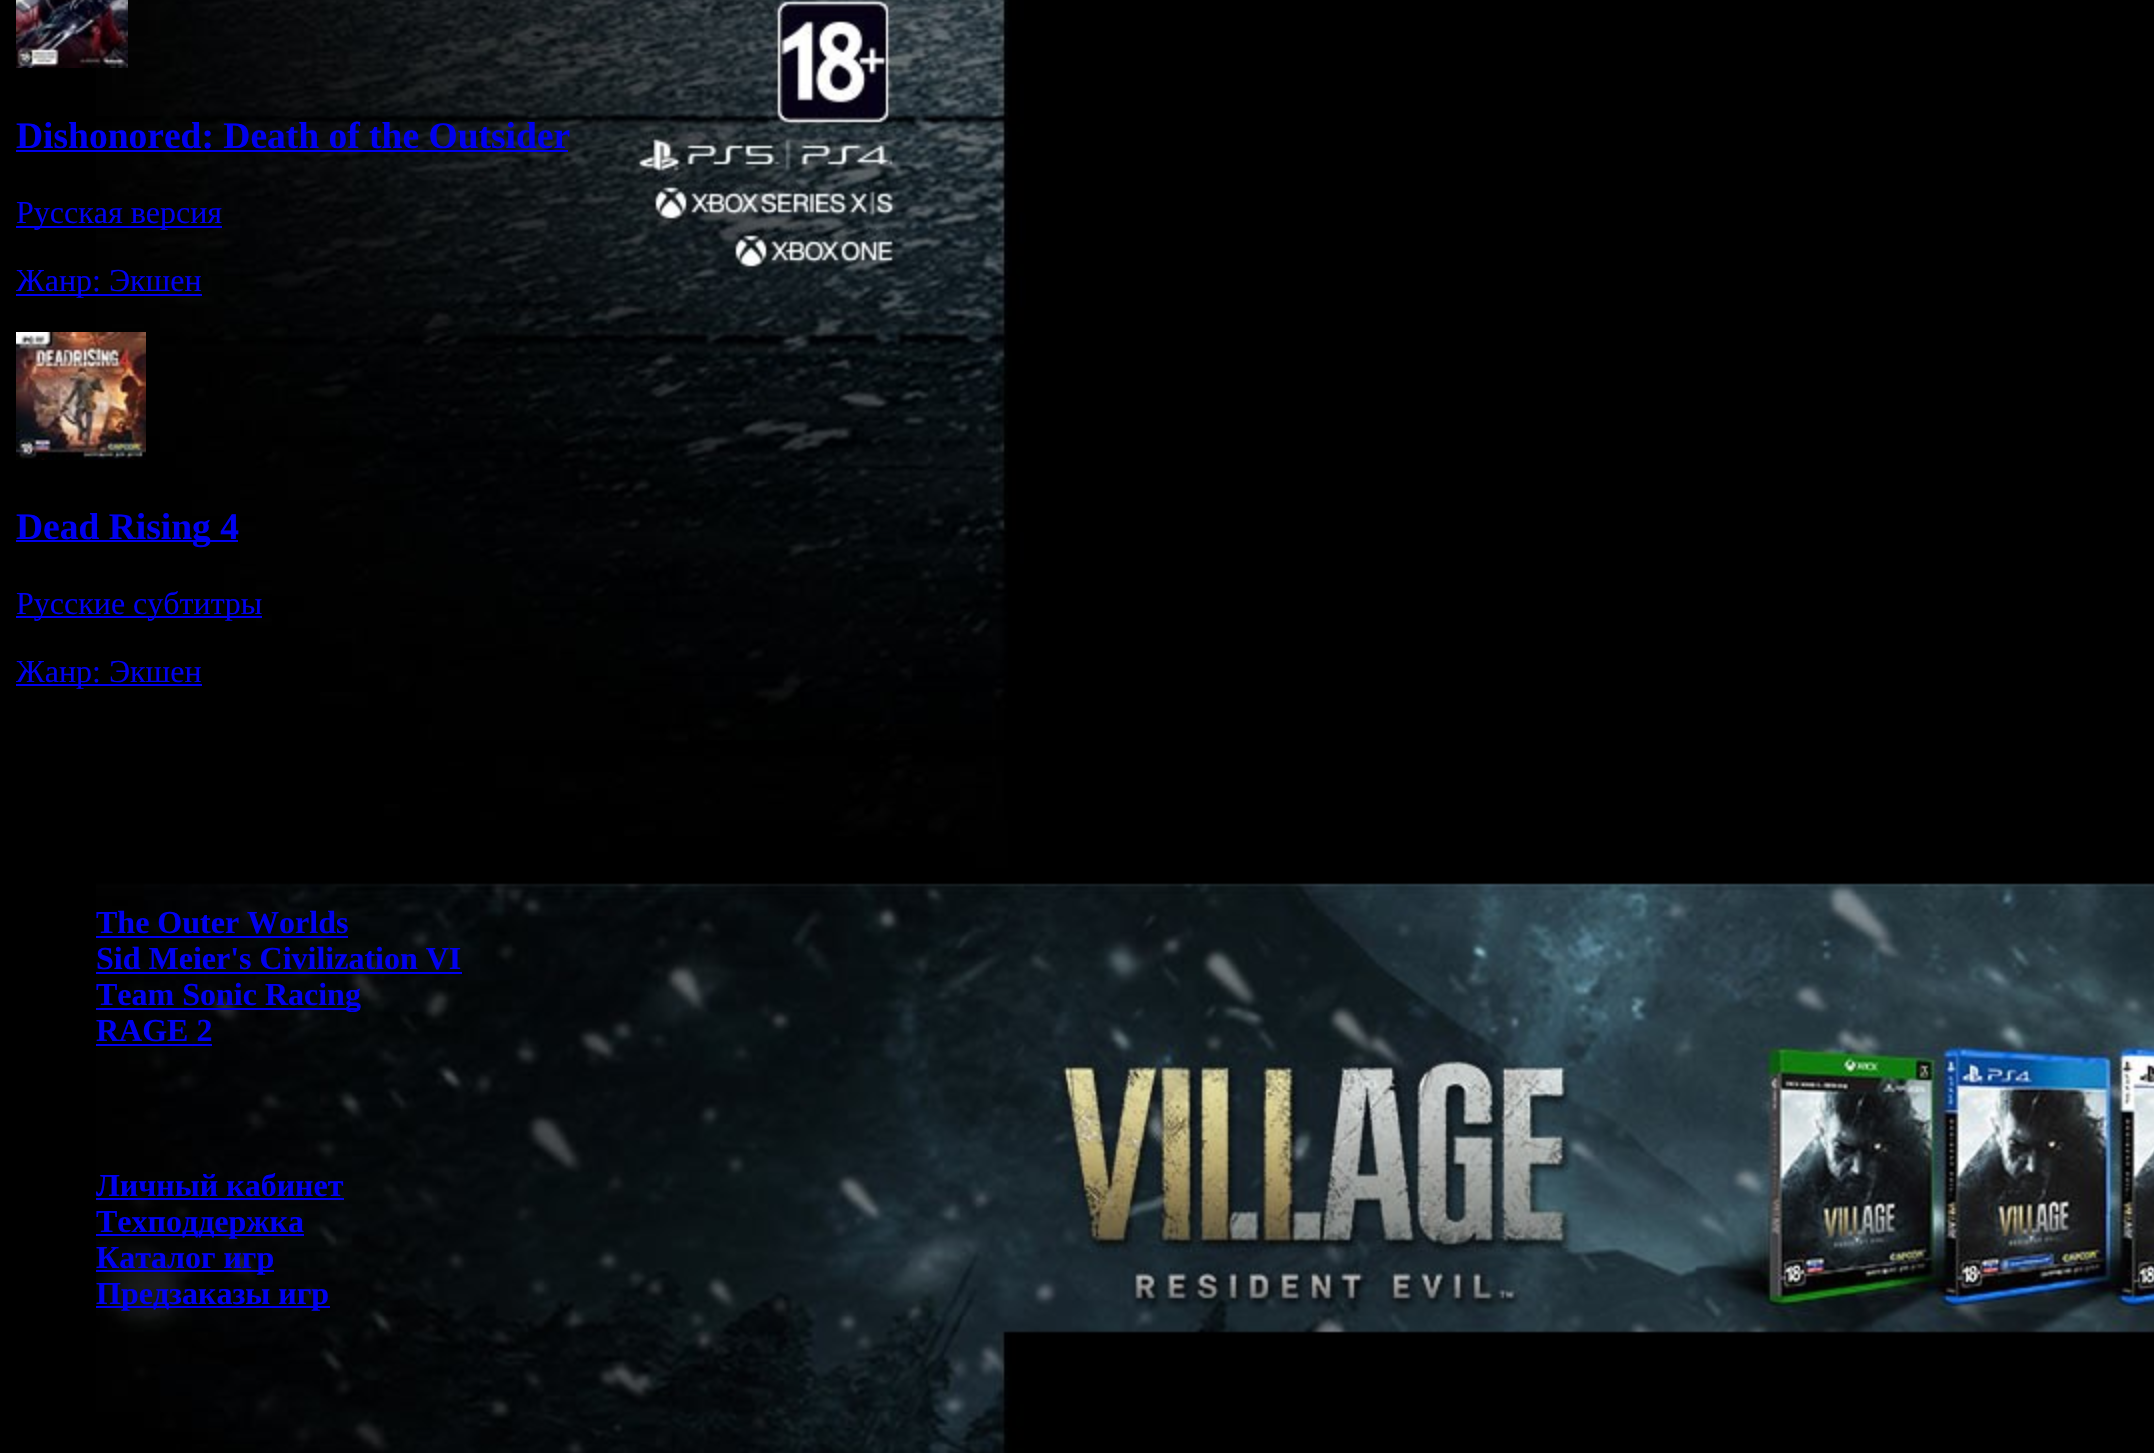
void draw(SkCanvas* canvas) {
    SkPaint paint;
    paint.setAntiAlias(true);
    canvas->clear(0xFF000000);
    canvas->drawImageRect(SkImages::DeferredFromEncodedData(SkData::MakeFromFileName("img1.png")), SkRect::MakeXYWH(96, 0, 2058, 1453), SkSamplingOptions());
    canvas->drawImageRect(SkImages::DeferredFromEncodedData(SkData::MakeFromFileName("img2.png")), SkRect::MakeXYWH(16, 0, 112, 68), SkSamplingOptions());
    SkFont font1(fontMgr->matchFamilyStyle("Liberation Serif", SkFontStyle::Bold()), 37.5f);
    font1.setSubpixel(true);
    paint.setColor(0xFF0000EE);
    canvas->drawString("Dishonored: Death of the Outsider", 16, 148, font1, paint);
    canvas->drawRect(SkRect::MakeXYWH(16, 150, 552, 2), paint);
    canvas->drawRect(SkRect::MakeXYWH(16, 226, 206, 2), paint);
    SkFont font2(fontMgr->matchFamilyStyle("Liberation Serif", SkFontStyle::Normal()), 32);
    font2.setSubpixel(true);
    canvas->drawString("Русская версия", 16, 223, font2, paint);
    canvas->drawRect(SkRect::MakeXYWH(16, 294, 186, 2), paint);
    canvas->drawString("Жанр: Экшен", 16, 291, font2, paint);
    canvas->drawImageRect(SkImages::DeferredFromEncodedData(SkData::MakeFromFileName("img3.png")), SkRect::MakeXYWH(16, 332, 130, 128), SkSamplingOptions());
    canvas->drawRect(SkRect::MakeXYWH(16, 540, 222, 2), paint);
    canvas->drawString("Dead Rising 4", 16, 539, font1, paint);
    canvas->drawRect(SkRect::MakeXYWH(16, 616, 246, 2), paint);
    canvas->drawString("Русские субтитры", 16, 614, font2, paint);
    canvas->drawRect(SkRect::MakeXYWH(16, 684, 186, 2), paint);
    canvas->drawString("Жанр: Экшен", 16, 682, font2, paint);
    SkFont font3(fontMgr->matchFamilyStyle("Liberation Serif", SkFontStyle::Bold()), 32);
    font3.setSubpixel(true);
    canvas->drawString("The Outer Worlds", 96, 933, font3, paint);
    canvas->drawRect(SkRect::MakeXYWH(96, 936, 252, 2), paint);
    canvas->drawString("Sid Meier's Civilization VI", 96, 969, font3, paint);
    canvas->drawRect(SkRect::MakeXYWH(96, 972, 366, 2), paint);
    canvas->drawRect(SkRect::MakeXYWH(96, 1008, 264, 2), paint);
    canvas->drawString("Team Sonic Racing", 96, 1005, font3, paint);
    canvas->drawString("RAGE 2", 96, 1041, font3, paint);
    canvas->drawRect(SkRect::MakeXYWH(96, 1044, 116, 2), paint);
    canvas->drawString("Личный кабинет", 96, 1196, font3, paint);
    canvas->drawRect(SkRect::MakeXYWH(96, 1198, 248, 2), paint);
    canvas->drawRect(SkRect::MakeXYWH(96, 1234, 208, 2), paint);
    canvas->drawString("Техподдержка", 96, 1232, font3, paint);
    canvas->drawRect(SkRect::MakeXYWH(96, 1270, 178, 2), paint);
    canvas->drawString("Каталог игр", 96, 1268, font3, paint);
    canvas->drawRect(SkRect::MakeXYWH(96, 1306, 234, 2), paint);
    canvas->drawString("Предзаказы игр", 96, 1304, font3, paint);
}
